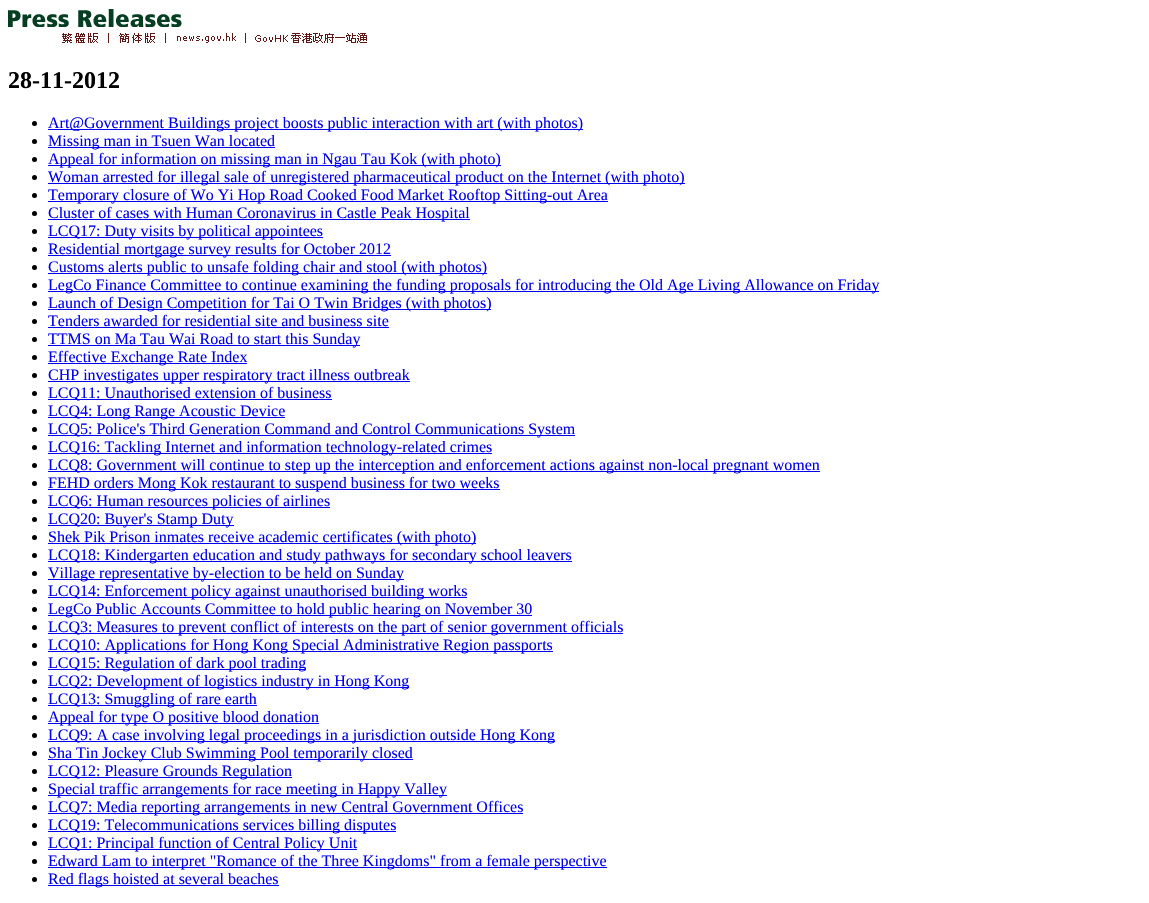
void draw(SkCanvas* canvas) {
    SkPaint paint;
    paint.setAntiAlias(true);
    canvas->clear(0xFFFFFFFF);
    canvas->drawImageRect(SkImages::DeferredFromEncodedData(SkData::MakeFromFileName("img1.png")), SkRect::MakeXYWH(8, 9, 174, 18), SkSamplingOptions());
    canvas->drawImageRect(SkImages::DeferredFromEncodedData(SkData::MakeFromFileName("img2.png")), SkRect::MakeXYWH(62, 33, 47, 10), SkSamplingOptions());
    canvas->drawImageRect(SkImages::DeferredFromEncodedData(SkData::MakeFromFileName("img3.png")), SkRect::MakeXYWH(119, 33, 47, 10), SkSamplingOptions());
    canvas->drawImageRect(SkImages::DeferredFromEncodedData(SkData::MakeFromFileName("img4.png")), SkRect::MakeXYWH(177, 33, 69, 10), SkSamplingOptions());
    canvas->drawImageRect(SkImages::DeferredFromEncodedData(SkData::MakeFromFileName("img5.png")), SkRect::MakeXYWH(255, 33, 112, 10), SkSamplingOptions());
    SkFont font1(fontMgr->matchFamilyStyle("Liberation Serif", SkFontStyle::Bold()), 24);
    font1.setSubpixel(true);
    paint.setColor(0xFF000000);
    canvas->drawString("28-11-2012", 8, 88, font1, paint);
    canvas->drawCircle(34.5f, 123.5f, 2.5f, paint);
    paint.setColor(0xFF0000EE);
    canvas->drawRect(SkRect::MakeXYWH(48, 129, 535, 1), paint);
    SkFont font2(fontMgr->matchFamilyStyle("Liberation Serif", SkFontStyle::Normal()), 16);
    font2.setSubpixel(true);
    canvas->drawString("Art@Government Buildings project boosts public interaction with art (with photos)", 48, 128, font2, paint);
    paint.setColor(0xFF000000);
    canvas->drawCircle(34.5f, 141.5f, 2.5f, paint);
    paint.setColor(0xFF0000EE);
    canvas->drawRect(SkRect::MakeXYWH(48, 147, 227, 1), paint);
    canvas->drawString("Missing man in Tsuen Wan located", 48, 146, font2, paint);
    paint.setColor(0xFF000000);
    canvas->drawCircle(34.5f, 159.5f, 2.5f, paint);
    paint.setColor(0xFF0000EE);
    canvas->drawRect(SkRect::MakeXYWH(48, 165, 453, 1), paint);
    canvas->drawString("Appeal for information on missing man in Ngau Tau Kok (with photo)", 48, 164, font2, paint);
    paint.setColor(0xFF000000);
    canvas->drawCircle(34.5f, 177.5f, 2.5f, paint);
    paint.setColor(0xFF0000EE);
    canvas->drawRect(SkRect::MakeXYWH(48, 183, 637, 1), paint);
    canvas->drawString("Woman arrested for illegal sale of unregistered pharmaceutical product on the Internet (with photo)", 48, 182, font2, paint);
    paint.setColor(0xFF000000);
    canvas->drawCircle(34.5f, 195.5f, 2.5f, paint);
    paint.setColor(0xFF0000EE);
    canvas->drawRect(SkRect::MakeXYWH(48, 201, 560, 1), paint);
    canvas->drawString("Temporary closure of Wo Yi Hop Road Cooked Food Market Rooftop Sitting-out Area", 48, 200, font2, paint);
    paint.setColor(0xFF000000);
    canvas->drawCircle(34.5f, 213.5f, 2.5f, paint);
    paint.setColor(0xFF0000EE);
    canvas->drawRect(SkRect::MakeXYWH(48, 219, 422, 1), paint);
    canvas->drawString("Cluster of cases with Human Coronavirus in Castle Peak Hospital", 48, 218, font2, paint);
    paint.setColor(0xFF000000);
    canvas->drawCircle(34.5f, 231.5f, 2.5f, paint);
    paint.setColor(0xFF0000EE);
    canvas->drawRect(SkRect::MakeXYWH(48, 237, 275, 1), paint);
    canvas->drawString("LCQ17: Duty visits by political appointees", 48, 236, font2, paint);
    paint.setColor(0xFF000000);
    canvas->drawCircle(34.5f, 249.5f, 2.5f, paint);
    paint.setColor(0xFF0000EE);
    canvas->drawRect(SkRect::MakeXYWH(48, 255, 343, 1), paint);
    canvas->drawString("Residential mortgage survey results for October 2012", 48, 254, font2, paint);
    paint.setColor(0xFF000000);
    canvas->drawCircle(34.5f, 267.5f, 2.5f, paint);
    paint.setColor(0xFF0000EE);
    canvas->drawRect(SkRect::MakeXYWH(48, 273, 439, 1), paint);
    canvas->drawString("Customs alerts public to unsafe folding chair and stool (with photos)", 48, 272, font2, paint);
    paint.setColor(0xFF000000);
    canvas->drawCircle(34.5f, 285.5f, 2.5f, paint);
    paint.setColor(0xFF0000EE);
    canvas->drawRect(SkRect::MakeXYWH(48, 291, 831, 1), paint);
    canvas->drawString("LegCo Finance Committee to continue examining the funding proposals for introducing the Old Age Living Allowance on Friday", 48, 290, font2, paint);
    paint.setColor(0xFF000000);
    canvas->drawCircle(34.5f, 303.5f, 2.5f, paint);
    paint.setColor(0xFF0000EE);
    canvas->drawRect(SkRect::MakeXYWH(48, 309, 443, 1), paint);
    canvas->drawString("Launch of Design Competition for Tai O Twin Bridges (with photos)", 48, 308, font2, paint);
    paint.setColor(0xFF000000);
    canvas->drawCircle(34.5f, 321.5f, 2.5f, paint);
    paint.setColor(0xFF0000EE);
    canvas->drawString("Tenders awarded for residential site and business site", 48, 326, font2, paint);
    canvas->drawRect(SkRect::MakeXYWH(48, 327, 341, 1), paint);
    paint.setColor(0xFF000000);
    canvas->drawCircle(34.5f, 339.5f, 2.5f, paint);
    paint.setColor(0xFF0000EE);
    canvas->drawRect(SkRect::MakeXYWH(48, 345, 312, 1), paint);
    canvas->drawString("TTMS on Ma Tau Wai Road to start this Sunday", 48, 344, font2, paint);
    paint.setColor(0xFF000000);
    canvas->drawCircle(34.5f, 357.5f, 2.5f, paint);
    paint.setColor(0xFF0000EE);
    canvas->drawRect(SkRect::MakeXYWH(48, 363, 199, 1), paint);
    canvas->drawString("Effective Exchange Rate Index", 48, 362, font2, paint);
    paint.setColor(0xFF000000);
    canvas->drawCircle(34.5f, 375.5f, 2.5f, paint);
    paint.setColor(0xFF0000EE);
    canvas->drawRect(SkRect::MakeXYWH(48, 381, 362, 1), paint);
    canvas->drawString("CHP investigates upper respiratory tract illness outbreak", 48, 380, font2, paint);
    paint.setColor(0xFF000000);
    canvas->drawCircle(34.5f, 393.5f, 2.5f, paint);
    paint.setColor(0xFF0000EE);
    canvas->drawRect(SkRect::MakeXYWH(48, 399, 284, 1), paint);
    canvas->drawString("LCQ11: Unauthorised extension of business", 48, 398, font2, paint);
    paint.setColor(0xFF000000);
    canvas->drawCircle(34.5f, 411.5f, 2.5f, paint);
    paint.setColor(0xFF0000EE);
    canvas->drawRect(SkRect::MakeXYWH(48, 417, 237, 1), paint);
    canvas->drawString("LCQ4: Long Range Acoustic Device", 48, 416, font2, paint);
    paint.setColor(0xFF000000);
    canvas->drawCircle(34.5f, 429.5f, 2.5f, paint);
    paint.setColor(0xFF0000EE);
    canvas->drawRect(SkRect::MakeXYWH(48, 435, 527, 1), paint);
    canvas->drawString("LCQ5: Police's Third Generation Command and Control Communications System", 48, 434, font2, paint);
    paint.setColor(0xFF000000);
    canvas->drawCircle(34.5f, 447.5f, 2.5f, paint);
    paint.setColor(0xFF0000EE);
    canvas->drawRect(SkRect::MakeXYWH(48, 453, 444, 1), paint);
    canvas->drawString("LCQ16: Tackling Internet and information technology-related crimes", 48, 452, font2, paint);
    paint.setColor(0xFF000000);
    canvas->drawCircle(34.5f, 465.5f, 2.5f, paint);
    paint.setColor(0xFF0000EE);
    canvas->drawRect(SkRect::MakeXYWH(48, 471, 772, 1), paint);
    canvas->drawString("LCQ8: Government will continue to step up the interception and enforcement actions against non-local pregnant women", 48, 470, font2, paint);
    paint.setColor(0xFF000000);
    canvas->drawCircle(34.5f, 483.5f, 2.5f, paint);
    paint.setColor(0xFF0000EE);
    canvas->drawRect(SkRect::MakeXYWH(48, 489, 452, 1), paint);
    canvas->drawString("FEHD orders Mong Kok restaurant to suspend business for two weeks", 48, 488, font2, paint);
    paint.setColor(0xFF000000);
    canvas->drawCircle(34.5f, 501.5f, 2.5f, paint);
    paint.setColor(0xFF0000EE);
    canvas->drawRect(SkRect::MakeXYWH(48, 507, 282, 1), paint);
    canvas->drawString("LCQ6: Human resources policies of airlines", 48, 506, font2, paint);
    paint.setColor(0xFF000000);
    canvas->drawCircle(34.5f, 519.5f, 2.5f, paint);
    paint.setColor(0xFF0000EE);
    canvas->drawRect(SkRect::MakeXYWH(48, 525, 186, 1), paint);
    canvas->drawString("LCQ20: Buyer's Stamp Duty", 48, 524, font2, paint);
    paint.setColor(0xFF000000);
    canvas->drawCircle(34.5f, 537.5f, 2.5f, paint);
    paint.setColor(0xFF0000EE);
    canvas->drawRect(SkRect::MakeXYWH(48, 543, 428, 1), paint);
    canvas->drawString("Shek Pik Prison inmates receive academic certificates (with photo)", 48, 542, font2, paint);
    paint.setColor(0xFF000000);
    canvas->drawCircle(34.5f, 555.5f, 2.5f, paint);
    paint.setColor(0xFF0000EE);
    canvas->drawRect(SkRect::MakeXYWH(48, 561, 524, 1), paint);
    canvas->drawString("LCQ18: Kindergarten education and study pathways for secondary school leavers", 48, 560, font2, paint);
    paint.setColor(0xFF000000);
    canvas->drawCircle(34.5f, 573.5f, 2.5f, paint);
    paint.setColor(0xFF0000EE);
    canvas->drawRect(SkRect::MakeXYWH(48, 579, 356, 1), paint);
    canvas->drawString("Village representative by-election to be held on Sunday", 48, 578, font2, paint);
    paint.setColor(0xFF000000);
    canvas->drawCircle(34.5f, 591.5f, 2.5f, paint);
    paint.setColor(0xFF0000EE);
    canvas->drawRect(SkRect::MakeXYWH(48, 597, 419, 1), paint);
    canvas->drawString("LCQ14: Enforcement policy against unauthorised building works", 48, 596, font2, paint);
    paint.setColor(0xFF000000);
    canvas->drawCircle(34.5f, 609.5f, 2.5f, paint);
    paint.setColor(0xFF0000EE);
    canvas->drawRect(SkRect::MakeXYWH(48, 615, 484, 1), paint);
    canvas->drawString("LegCo Public Accounts Committee to hold public hearing on November 30", 48, 614, font2, paint);
    paint.setColor(0xFF000000);
    canvas->drawCircle(34.5f, 627.5f, 2.5f, paint);
    paint.setColor(0xFF0000EE);
    canvas->drawRect(SkRect::MakeXYWH(48, 633, 575, 1), paint);
    canvas->drawString("LCQ3: Measures to prevent conflict of interests on the part of senior government officials", 48, 632, font2, paint);
    paint.setColor(0xFF000000);
    canvas->drawCircle(34.5f, 645.5f, 2.5f, paint);
    paint.setColor(0xFF0000EE);
    canvas->drawRect(SkRect::MakeXYWH(48, 651, 505, 1), paint);
    canvas->drawString("LCQ10: Applications for Hong Kong Special Administrative Region passports", 48, 650, font2, paint);
    paint.setColor(0xFF000000);
    canvas->drawCircle(34.5f, 663.5f, 2.5f, paint);
    paint.setColor(0xFF0000EE);
    canvas->drawRect(SkRect::MakeXYWH(48, 669, 258, 1), paint);
    canvas->drawString("LCQ15: Regulation of dark pool trading", 48, 668, font2, paint);
    paint.setColor(0xFF000000);
    canvas->drawCircle(34.5f, 681.5f, 2.5f, paint);
    paint.setColor(0xFF0000EE);
    canvas->drawRect(SkRect::MakeXYWH(48, 687, 361, 1), paint);
    canvas->drawString("LCQ2: Development of logistics industry in Hong Kong", 48, 686, font2, paint);
    paint.setColor(0xFF000000);
    canvas->drawCircle(34.5f, 699.5f, 2.5f, paint);
    paint.setColor(0xFF0000EE);
    canvas->drawRect(SkRect::MakeXYWH(48, 705, 209, 1), paint);
    canvas->drawString("LCQ13: Smuggling of rare earth", 48, 704, font2, paint);
    paint.setColor(0xFF000000);
    canvas->drawCircle(34.5f, 717.5f, 2.5f, paint);
    paint.setColor(0xFF0000EE);
    canvas->drawRect(SkRect::MakeXYWH(48, 723, 271, 1), paint);
    canvas->drawString("Appeal for type O positive blood donation", 48, 722, font2, paint);
    paint.setColor(0xFF000000);
    canvas->drawCircle(34.5f, 735.5f, 2.5f, paint);
    paint.setColor(0xFF0000EE);
    canvas->drawRect(SkRect::MakeXYWH(48, 741, 507, 1), paint);
    canvas->drawString("LCQ9: A case involving legal proceedings in a jurisdiction outside Hong Kong", 48, 740, font2, paint);
    paint.setColor(0xFF000000);
    canvas->drawCircle(34.5f, 753.5f, 2.5f, paint);
    paint.setColor(0xFF0000EE);
    canvas->drawRect(SkRect::MakeXYWH(48, 759, 365, 1), paint);
    canvas->drawString("Sha Tin Jockey Club Swimming Pool temporarily closed", 48, 758, font2, paint);
    paint.setColor(0xFF000000);
    canvas->drawCircle(34.5f, 771.5f, 2.5f, paint);
    paint.setColor(0xFF0000EE);
    canvas->drawRect(SkRect::MakeXYWH(48, 777, 244, 1), paint);
    canvas->drawString("LCQ12: Pleasure Grounds Regulation", 48, 776, font2, paint);
    paint.setColor(0xFF000000);
    canvas->drawCircle(34.5f, 789.5f, 2.5f, paint);
    paint.setColor(0xFF0000EE);
    canvas->drawRect(SkRect::MakeXYWH(48, 795, 399, 1), paint);
    canvas->drawString("Special traffic arrangements for race meeting in Happy Valley", 48, 794, font2, paint);
    paint.setColor(0xFF000000);
    canvas->drawCircle(34.5f, 807.5f, 2.5f, paint);
    paint.setColor(0xFF0000EE);
    canvas->drawRect(SkRect::MakeXYWH(48, 813, 475, 1), paint);
    canvas->drawString("LCQ7: Media reporting arrangements in new Central Government Offices", 48, 812, font2, paint);
    paint.setColor(0xFF000000);
    canvas->drawCircle(34.5f, 825.5f, 2.5f, paint);
    paint.setColor(0xFF0000EE);
    canvas->drawRect(SkRect::MakeXYWH(48, 831, 348, 1), paint);
    canvas->drawString("LCQ19: Telecommunications services billing disputes", 48, 830, font2, paint);
    paint.setColor(0xFF000000);
    canvas->drawCircle(34.5f, 843.5f, 2.5f, paint);
    paint.setColor(0xFF0000EE);
    canvas->drawRect(SkRect::MakeXYWH(48, 849, 309, 1), paint);
    canvas->drawString("LCQ1: Principal function of Central Policy Unit", 48, 848, font2, paint);
    paint.setColor(0xFF000000);
    canvas->drawCircle(34.5f, 861.5f, 2.5f, paint);
    paint.setColor(0xFF0000EE);
    canvas->drawRect(SkRect::MakeXYWH(48, 867, 559, 1), paint);
    canvas->drawString("Edward Lam to interpret \"Romance of the Three Kingdoms\" from a female perspective", 48, 866, font2, paint);
    paint.setColor(0xFF000000);
    canvas->drawCircle(34.5f, 879.5f, 2.5f, paint);
    paint.setColor(0xFF0000EE);
    canvas->drawRect(SkRect::MakeXYWH(48, 885, 231, 1), paint);
    canvas->drawString("Red flags hoisted at several beaches", 48, 884, font2, paint);
}
